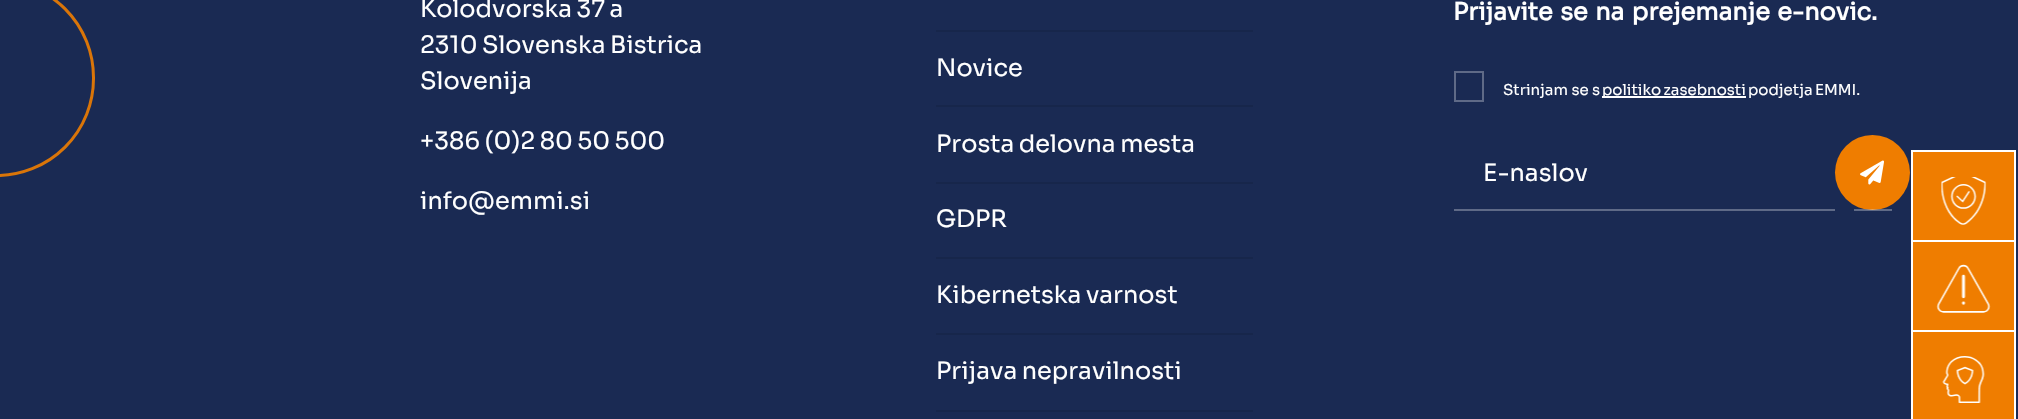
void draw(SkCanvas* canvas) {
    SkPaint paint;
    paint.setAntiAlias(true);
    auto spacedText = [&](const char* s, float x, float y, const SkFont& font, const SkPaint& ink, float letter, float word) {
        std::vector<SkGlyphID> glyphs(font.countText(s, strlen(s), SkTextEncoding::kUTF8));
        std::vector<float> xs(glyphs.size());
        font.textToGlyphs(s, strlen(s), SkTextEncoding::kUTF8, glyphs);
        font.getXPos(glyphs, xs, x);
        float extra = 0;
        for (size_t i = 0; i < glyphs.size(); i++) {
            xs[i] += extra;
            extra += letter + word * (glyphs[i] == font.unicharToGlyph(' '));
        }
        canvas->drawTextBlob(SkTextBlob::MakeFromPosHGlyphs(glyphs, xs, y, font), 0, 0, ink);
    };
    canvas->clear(0xFF1A2A53);
    paint.setStyle(SkPaint::kStroke_Style);
    paint.setStrokeWidth(3);
    paint.setColor(0xFFDA7508);
    canvas->drawRoundRect(SkRect::MakeXYWH(-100.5f, -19.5f, 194, 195), 97.5f, 97.5f, paint);
    SkFont font1(fontMgr->matchFamilyStyle("Sora", SkFontStyle::Normal()), 24);
    font1.setSubpixel(true);
    paint.setStyle(SkPaint::kFill_Style);
    paint.setColor(0xFFFFFFFF);
    spacedText("Kolodvorska 37 a", 420, 17, font1, paint, 0, -1);
    spacedText("2310 Slovenska Bistrica", 420, 53, font1, paint, 0, -1);
    canvas->drawString("Slovenija", 420, 89, font1, paint);
    spacedText("+386 (0)2 80 50 500", 420, 149, font1, paint, 0, -1);
    canvas->drawString("info@emmi.si", 420, 209, font1, paint);
    paint.setColor(0xFF17264B);
    canvas->drawRect(SkRect::MakeXYWH(936, 30, 317, 2), paint);
    canvas->drawRect(SkRect::MakeXYWH(936, 105, 317, 2), paint);
    paint.setColor(0xFFFFFFFF);
    canvas->drawString("Novice", 936, 76, font1, paint);
    paint.setColor(0xFF17264B);
    canvas->drawRect(SkRect::MakeXYWH(936, 182, 317, 2), paint);
    paint.setColor(0xFFFFFFFF);
    spacedText("Prosta delovna mesta", 936, 152, font1, paint, 0, -1);
    paint.setColor(0xFF17264B);
    canvas->drawRect(SkRect::MakeXYWH(936, 257, 317, 2), paint);
    paint.setColor(0xFFFFFFFF);
    canvas->drawString("GDPR", 936, 227, font1, paint);
    paint.setColor(0xFF17264B);
    canvas->drawRect(SkRect::MakeXYWH(936, 333, 317, 2), paint);
    paint.setColor(0xFFFFFFFF);
    spacedText("Kibernetska varnost", 936, 303, font1, paint, 0, -1);
    paint.setColor(0xFF17264B);
    canvas->drawRect(SkRect::MakeXYWH(936, 410, 317, 2), paint);
    paint.setColor(0xFFFFFFFF);
    spacedText("Prijava nepravilnosti", 936, 379, font1, paint, 0, -1);
    SkFont font2(fontMgr->matchFamilyStyle("Sora", SkFontStyle::Bold()), 24);
    font2.setSubpixel(true);
    spacedText("Prijavite se na prejemanje e-novic.", 1453, 20, font2, paint, 0, 2);
    paint.setStyle(SkPaint::kStroke_Style);
    paint.setStrokeWidth(2);
    paint.setColor(0xFF5F6A87);
    canvas->drawRect(SkRect::MakeXYWH(1455, 72, 28, 29), paint);
    SkFont font3(fontMgr->matchFamilyStyle("Sora", SkFontStyle::Normal()), 15);
    font3.setSubpixel(true);
    paint.setStyle(SkPaint::kFill_Style);
    paint.setColor(0xFFFFFFFF);
    canvas->drawString("Strinjam se s", 1503, 95, font3, paint);
    canvas->drawRect(SkRect::MakeXYWH(1602, 96, 144, 2), paint);
    spacedText("politiko zasebnosti", 1602, 95, font3, paint, 0, -1);
    spacedText("podjetja EMMI.", 1748, 95, font3, paint, 0, -1);
    paint.setColor(0xFF5F6A87);
    canvas->drawRect(SkRect::MakeXYWH(1454, 209, 381, 2), paint);
    paint.setColor(0xFFFFFFFF);
    canvas->drawString("E-naslov", 1483, 181, font1, paint);
    paint.setColor(0xFFEF7D00);
    canvas->drawCircle(1872.5f, 172.5f, 37.5f, paint);
    paint.setColor(0x4DFFFFFF);
    canvas->drawRect(SkRect::MakeXYWH(1854, 209, 38, 2), paint);
    canvas->drawImageRect(SkImages::DeferredFromEncodedData(SkData::MakeFromFileName("img1.png")), SkRect::MakeXYWH(1860, 160, 24, 25), SkSamplingOptions());
    paint.setColor(0xFFEF7D00);
    canvas->drawRect(SkRect::MakeXYWH(1913, 152, 101, 88), paint);
    paint.setStyle(SkPaint::kStroke_Style);
    paint.setColor(0xFFFFFFFF);
    canvas->drawRect(SkRect::MakeXYWH(1912, 151, 103, 103), paint);
    canvas->drawImageRect(SkImages::DeferredFromEncodedData(SkData::MakeFromFileName("img2.png")), SkRect::MakeXYWH(1941, 177, 46, 48), SkSamplingOptions());
    paint.setStyle(SkPaint::kFill_Style);
    paint.setColor(0xFFEF7D00);
    canvas->drawRect(SkRect::MakeXYWH(1913, 242, 101, 88), paint);
    paint.setStyle(SkPaint::kStroke_Style);
    paint.setColor(0xFFFFFFFF);
    canvas->drawRect(SkRect::MakeXYWH(1912, 241, 103, 103), paint);
    canvas->drawImageRect(SkImages::DeferredFromEncodedData(SkData::MakeFromFileName("img3.png")), SkRect::MakeXYWH(1936, 264, 55, 49), SkSamplingOptions());
    paint.setStyle(SkPaint::kFill_Style);
    paint.setColor(0xFFEF7D00);
    canvas->drawRect(SkRect::MakeXYWH(1912, 331, 103, 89), paint);
    paint.setStyle(SkPaint::kStroke_Style);
    paint.setColor(0xFFFFFFFF);
    canvas->drawRect(SkRect::MakeXYWH(1912, 331, 103, 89), paint);
    canvas->drawImageRect(SkImages::DeferredFromEncodedData(SkData::MakeFromFileName("img4.png")), SkRect::MakeXYWH(1942, 356, 43, 47), SkSamplingOptions());
}
